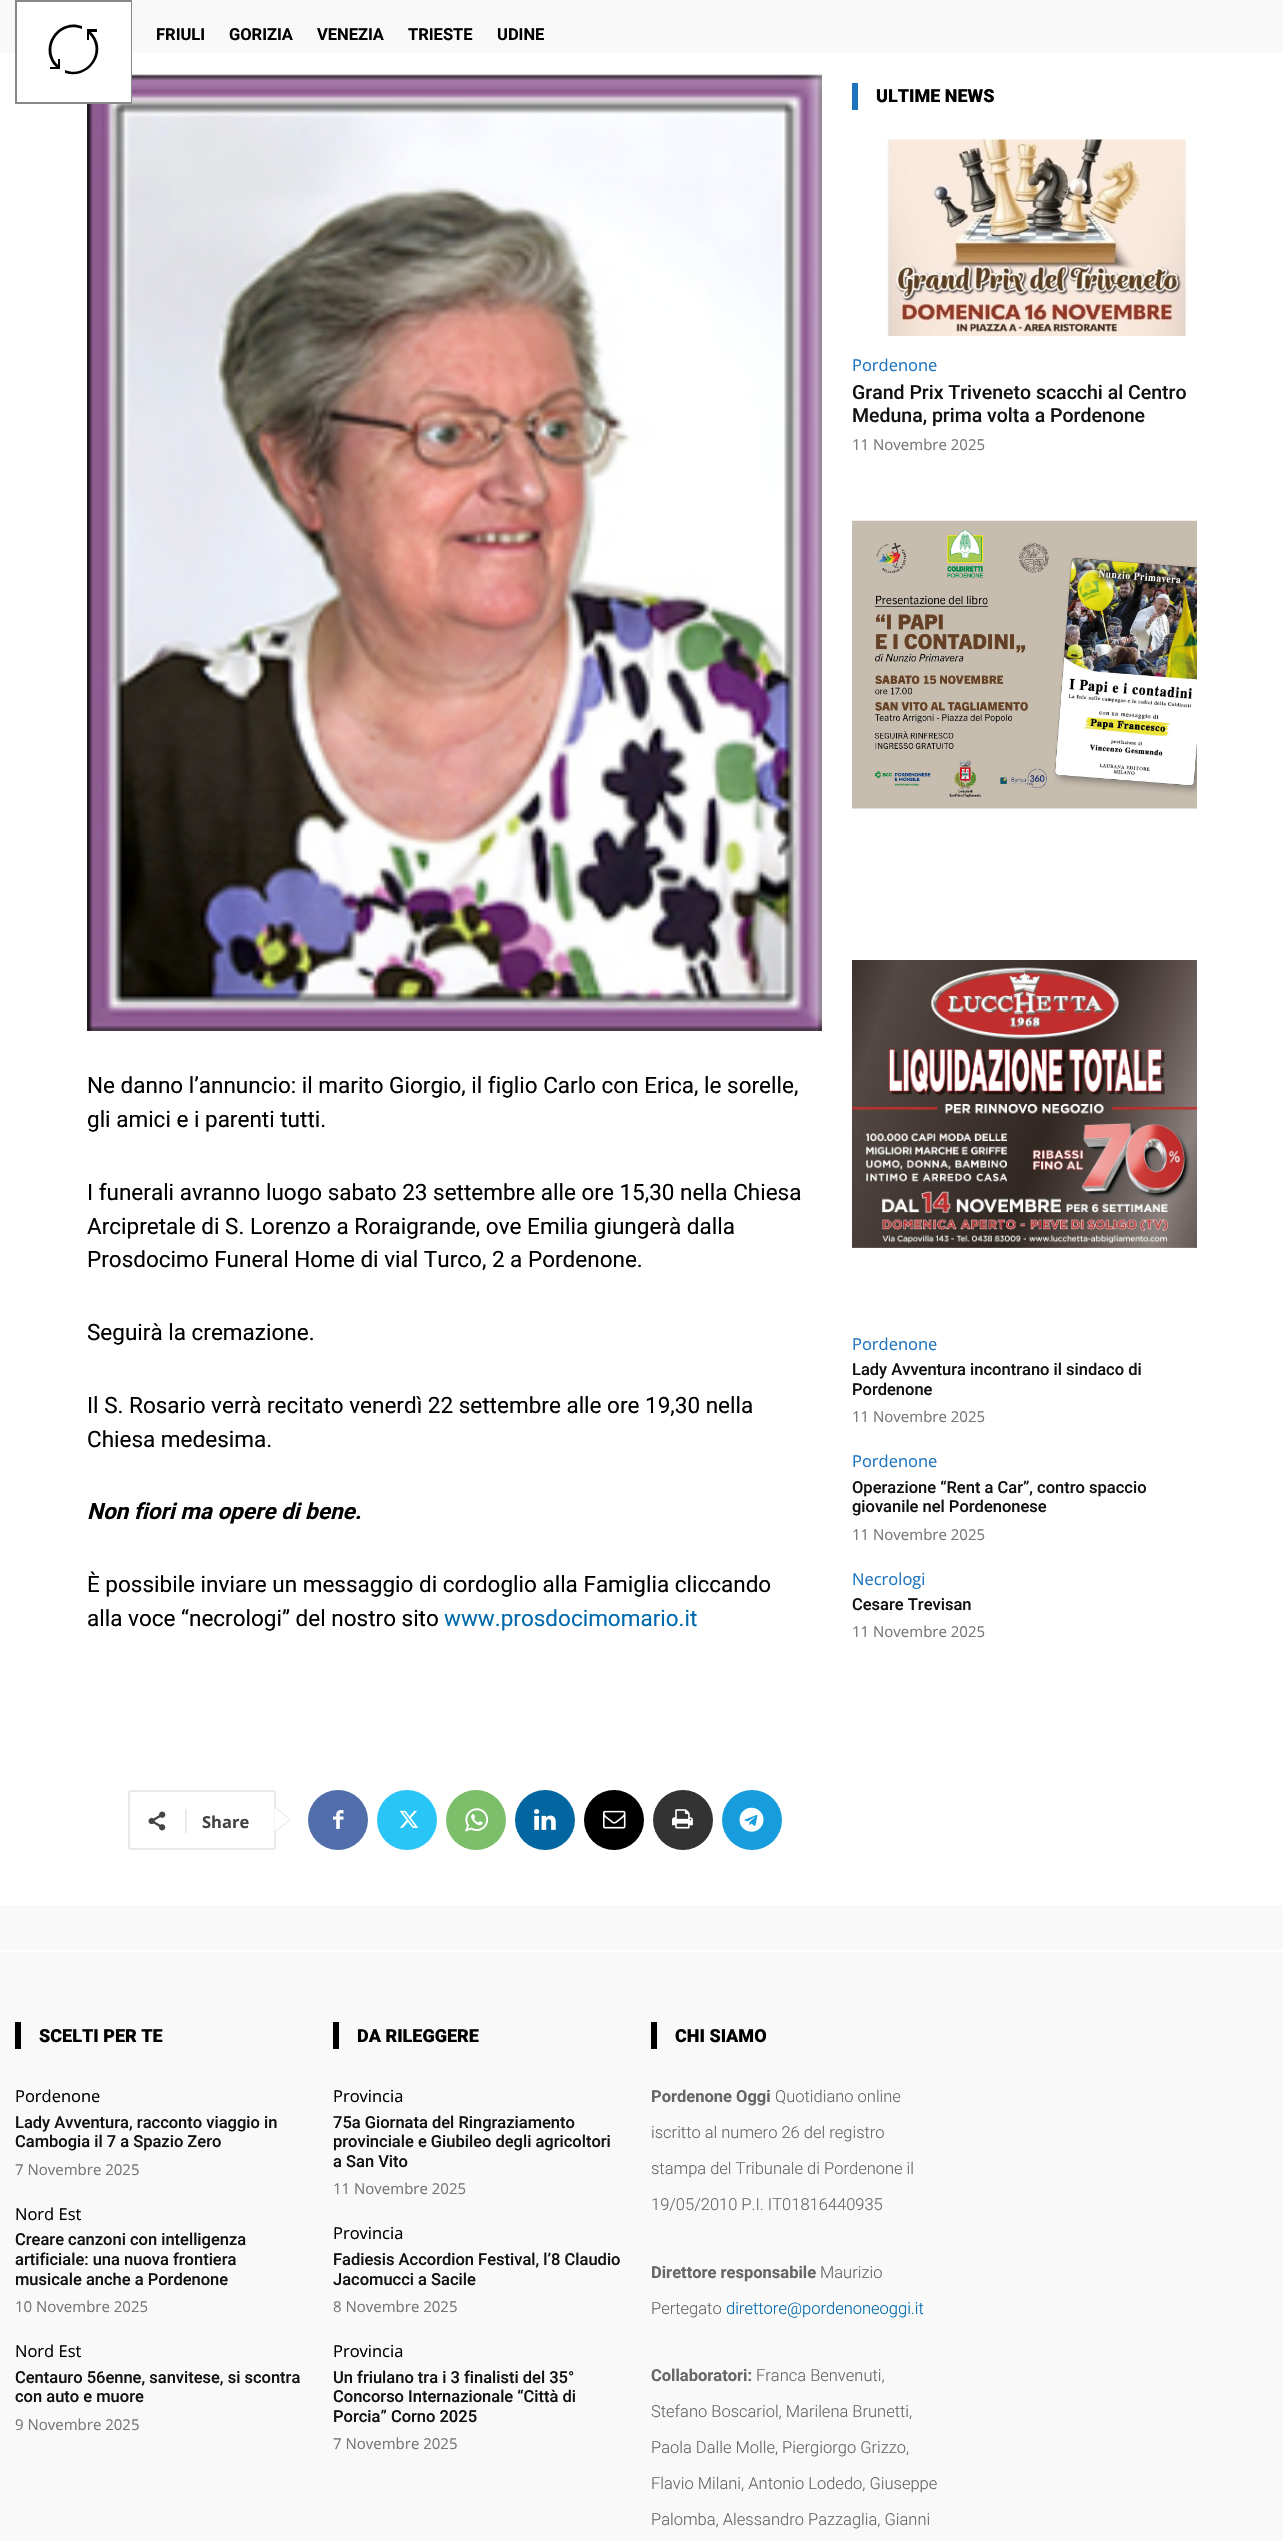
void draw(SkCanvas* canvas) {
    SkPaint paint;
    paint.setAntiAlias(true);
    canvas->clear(0xFFFFFFFF);
    paint.setColor(0xFFF9F9F9);
    canvas->drawRect(SkRect::MakeXYWH(0, 0, 1283, 53), paint);
    canvas->drawImageRect(SkImages::DeferredFromEncodedData(SkData::MakeFromFileName("img1.png")), SkRect::MakeXYWH(87, 74, 735, 957), SkSamplingOptions());
    paint.setStyle(SkPaint::kStroke_Style);
    paint.setStrokeWidth(2);
    paint.setColor(0xFF888888);
    canvas->drawRect(SkRect::MakeXYWH(16, 1, 115, 102), paint);
    paint.setStyle(SkPaint::kFill_Style);
    paint.setColor(0xFFFFFFFF);
    canvas->drawRect(SkRect::MakeXYWH(17, 2, 114, 100), paint);
    paint.setColor(0xFF000000);
    canvas->drawPath(SkPathBuilder().moveTo(97, 32).lineTo(97, 29).lineTo(87, 29).lineTo(87, 40).lineTo(89, 40).lineTo(89, 34).cubicTo(106, 51, 87, 79, 65, 70).lineTo(65, 73).cubicTo(89, 81, 110, 51, 91, 32).close().moveTo(58, 65).cubicTo(41, 48, 60, 20, 82, 29).lineTo(82, 26).cubicTo(58, 17, 37, 48, 56, 67).lineTo(50, 67).lineTo(50, 69).lineTo(60, 69).lineTo(60, 59).lineTo(58, 59).close().detach(), paint);
    SkFont font1(fontMgr->matchFamilyStyle("Roboto", SkFontStyle::Bold()), 16.5f);
    font1.setSubpixel(true);
    canvas->drawString("FRIULI", 156, 40, font1, paint);
    canvas->drawString("GORIZIA", 229, 40, font1, paint);
    canvas->drawString("VENEZIA", 317, 40, font1, paint);
    canvas->drawString("TRIESTE", 408, 40, font1, paint);
    canvas->drawString("UDINE", 497, 40, font1, paint);
    SkFont font2(fontMgr->matchFamilyStyle("Roboto", SkFontStyle::Normal()), 22.5f);
    font2.setSubpixel(true);
    canvas->drawString("Ne danno l’annuncio: il marito Giorgio, il figlio Carlo con Erica, le sorelle,", 87, 1093, font2, paint);
    canvas->drawString("gli amici e i parenti tutti.", 87, 1127, font2, paint);
    canvas->drawString("I funerali avranno luogo sabato 23 settembre alle ore 15,30 nella Chiesa", 87, 1200, font2, paint);
    canvas->drawString("Arcipretale di S. Lorenzo a Roraigrande, ove Emilia giungerà dalla", 87, 1234, font2, paint);
    canvas->drawString("Prosdocimo Funeral Home di vial Turco, 2 a Pordenone.", 87, 1267, font2, paint);
    canvas->drawString("Seguirà la cremazione.", 87, 1340, font2, paint);
    canvas->drawString("Il S. Rosario verrà recitato venerdì 22 settembre alle ore 19,30 nella", 87, 1413, font2, paint);
    canvas->drawString("Chiesa medesima.", 87, 1447, font2, paint);
    SkFont font3(fontMgr->matchFamilyStyle("Roboto", SkFontStyle::BoldItalic()), 22.5f);
    font3.setSubpixel(true);
    canvas->drawString("Non fiori ma opere di bene.", 87, 1519, font3, paint);
    canvas->drawString("È possibile inviare un messaggio di cordoglio alla Famiglia cliccando", 87, 1592, font2, paint);
    canvas->drawString("alla voce “necrologi” del nostro sito", 87, 1626, font2, paint);
    paint.setColor(0xFF0069AC);
    canvas->drawString("www.prosdocimomario.it", 444, 1626, font2, paint);
    paint.setStyle(SkPaint::kStroke_Style);
    paint.setColor(0xFFE9E9E9);
    canvas->drawRoundRect(SkRect::MakeXYWH(129, 1791, 146, 58), 2, 2, paint);
    paint.setStyle(SkPaint::kFill_Style);
    canvas->drawPath(SkPathBuilder().moveTo(274.5f, 1833).lineTo(274.5f, 1806).lineTo(291, 1819.5f).close().detach(), paint);
    canvas->drawImageRect(SkImages::DeferredFromEncodedData(SkData::MakeFromFileName("img2.png")), SkRect::MakeXYWH(148, 1811, 18, 20), SkSamplingOptions());
    paint.setColor(0xFFEBEBEB);
    canvas->drawRect(SkRect::MakeXYWH(185, 1809, 2, 24), paint);
    SkFont font4(fontMgr->matchFamilyStyle("Open Sans", SkFontStyle::Bold()), 16.5f);
    font4.setSubpixel(true);
    paint.setColor(0xFF444444);
    canvas->drawString("Share", 202, 1828, font4, paint);
    paint.setColor(0xFFFFFFFF);
    canvas->drawPath(SkPathBuilder().moveTo(274.5f, 1831.5f).lineTo(274.5f, 1807.5f).lineTo(289.5f, 1819.5f).close().detach(), paint);
    paint.setColor(0xFF516EAB);
    canvas->drawCircle(338, 1820, 30, paint);
    canvas->drawImageRect(SkImages::DeferredFromEncodedData(SkData::MakeFromFileName("img3.png")), SkRect::MakeXYWH(333, 1810, 11, 19), SkSamplingOptions());
    paint.setColor(0xFF29C5F6);
    canvas->drawCircle(407, 1820, 30, paint);
    canvas->drawImageRect(SkImages::DeferredFromEncodedData(SkData::MakeFromFileName("img4.png")), SkRect::MakeXYWH(399, 1810, 20, 18), SkSamplingOptions());
    paint.setColor(0xFF7BBF6A);
    canvas->drawCircle(476, 1820, 30, paint);
    canvas->drawImageRect(SkImages::DeferredFromEncodedData(SkData::MakeFromFileName("img5.png")), SkRect::MakeXYWH(465, 1808, 24, 24), SkSamplingOptions());
    paint.setColor(0xFF0266A0);
    canvas->drawCircle(545, 1820, 30, paint);
    canvas->drawImageRect(SkImages::DeferredFromEncodedData(SkData::MakeFromFileName("img6.png")), SkRect::MakeXYWH(534, 1809, 22, 21), SkSamplingOptions());
    paint.setColor(0xFF000000);
    canvas->drawCircle(614, 1820, 30, paint);
    canvas->drawImageRect(SkImages::DeferredFromEncodedData(SkData::MakeFromFileName("img7.png")), SkRect::MakeXYWH(603, 1810, 23, 19), SkSamplingOptions());
    paint.setColor(0xFF333333);
    canvas->drawCircle(683, 1820, 30, paint);
    canvas->drawImageRect(SkImages::DeferredFromEncodedData(SkData::MakeFromFileName("img8.png")), SkRect::MakeXYWH(672, 1809, 21, 20), SkSamplingOptions());
    paint.setColor(0xFF179CDE);
    canvas->drawCircle(752, 1820, 30, paint);
    canvas->drawImageRect(SkImages::DeferredFromEncodedData(SkData::MakeFromFileName("img9.png")), SkRect::MakeXYWH(739, 1807, 25, 25), SkSamplingOptions());
    paint.setColor(0xFF1E73BE);
    canvas->drawRect(SkRect::MakeXYWH(852, 83, 6, 27), paint);
    SkFont font5(fontMgr->matchFamilyStyle("Roboto", SkFontStyle(900, SkFontStyle::kNormal_Width, SkFontStyle::kUpright_Slant)), 18);
    font5.setSubpixel(true);
    paint.setColor(0xFF000000);
    canvas->drawString("ULTIME NEWS", 876, 102, font5, paint);
    canvas->drawImageRect(SkImages::DeferredFromEncodedData(SkData::MakeFromFileName("img10.png")), SkRect::MakeXYWH(886, 139, 302, 197), SkSamplingOptions());
    SkFont font6(fontMgr->matchFamilyStyle("Open Sans", SkFontStyle::Normal()), 16.5f);
    font6.setSubpixel(true);
    paint.setColor(0xFF1E73BE);
    canvas->drawString("Pordenone", 852, 371, font6, paint);
    SkFont font7(fontMgr->matchFamilyStyle("Roboto", SkFontStyle(500, SkFontStyle::kNormal_Width, SkFontStyle::kUpright_Slant)), 19.5f);
    font7.setSubpixel(true);
    paint.setColor(0xFF111111);
    canvas->drawString("Grand Prix Triveneto scacchi al Centro", 852, 399, font7, paint);
    canvas->drawString("Meduna, prima volta a Pordenone", 852, 422, font7, paint);
    SkFont font8(fontMgr->matchFamilyStyle("Open Sans", SkFontStyle::Normal()), 15);
    font8.setSubpixel(true);
    paint.setColor(0xFF767676);
    canvas->drawString("11 Novembre 2025", 852, 450, font8, paint);
    canvas->drawImageRect(SkImages::DeferredFromEncodedData(SkData::MakeFromFileName("img11.png")), SkRect::MakeXYWH(852, 520, 345, 289), SkSamplingOptions());
    canvas->drawImageRect(SkImages::DeferredFromEncodedData(SkData::MakeFromFileName("img12.png")), SkRect::MakeXYWH(852, 960, 345, 288), SkSamplingOptions());
    paint.setColor(0xFF1E73BE);
    canvas->drawString("Pordenone", 852, 1350, font6, paint);
    SkFont font9(fontMgr->matchFamilyStyle("Roboto", SkFontStyle(500, SkFontStyle::kNormal_Width, SkFontStyle::kUpright_Slant)), 16.5f);
    font9.setSubpixel(true);
    paint.setColor(0xFF111111);
    canvas->drawString("Lady Avventura incontrano il sindaco di", 852, 1375, font9, paint);
    canvas->drawString("Pordenone", 852, 1395, font9, paint);
    paint.setColor(0xFF767676);
    canvas->drawString("11 Novembre 2025", 852, 1422, font8, paint);
    paint.setColor(0xFF1E73BE);
    canvas->drawString("Pordenone", 852, 1467, font6, paint);
    paint.setColor(0xFF111111);
    canvas->drawString("Operazione “Rent a Car”, contro spaccio", 852, 1493, font9, paint);
    canvas->drawString("giovanile nel Pordenonese", 852, 1512, font9, paint);
    paint.setColor(0xFF767676);
    canvas->drawString("11 Novembre 2025", 852, 1540, font8, paint);
    paint.setColor(0xFF1E73BE);
    canvas->drawString("Necrologi", 852, 1585, font6, paint);
    paint.setColor(0xFF111111);
    canvas->drawString("Cesare Trevisan", 852, 1610, font9, paint);
    paint.setColor(0xFF767676);
    canvas->drawString("11 Novembre 2025", 852, 1637, font8, paint);
    paint.setColor(0xFFF9F9F9);
    canvas->drawRect(SkRect::MakeXYWH(0, 1905, 1283, 45), paint);
    canvas->drawRect(SkRect::MakeXYWH(0, 1952, 1283, 589), paint);
    paint.setColor(0xFF000000);
    canvas->drawRect(SkRect::MakeXYWH(15, 2022, 6, 27), paint);
    canvas->drawString("SCELTI PER TE", 39, 2042, font5, paint);
    canvas->drawString("Pordenone", 15, 2102, font6, paint);
    paint.setColor(0xFF111111);
    canvas->drawString("Lady Avventura, racconto viaggio in", 15, 2128, font9, paint);
    canvas->drawString("Cambogia il 7 a Spazio Zero", 15, 2147, font9, paint);
    paint.setColor(0xFF767676);
    canvas->drawString("7 Novembre 2025", 15, 2175, font8, paint);
    paint.setColor(0xFF000000);
    canvas->drawString("Nord Est", 15, 2220, font6, paint);
    paint.setColor(0xFF111111);
    canvas->drawString("Creare canzoni con intelligenza", 15, 2245, font9, paint);
    canvas->drawString("artificiale: una nuova frontiera", 15, 2265, font9, paint);
    canvas->drawString("musicale anche a Pordenone", 15, 2285, font9, paint);
    paint.setColor(0xFF767676);
    canvas->drawString("10 Novembre 2025", 15, 2312, font8, paint);
    paint.setColor(0xFF000000);
    canvas->drawString("Nord Est", 15, 2357, font6, paint);
    paint.setColor(0xFF111111);
    canvas->drawString("Centauro 56enne, sanvitese, si scontra", 15, 2383, font9, paint);
    canvas->drawString("con auto e muore", 15, 2402, font9, paint);
    paint.setColor(0xFF767676);
    canvas->drawString("9 Novembre 2025", 15, 2430, font8, paint);
    paint.setColor(0xFF000000);
    canvas->drawRect(SkRect::MakeXYWH(333, 2022, 6, 27), paint);
    canvas->drawString("DA RILEGGERE", 357, 2042, font5, paint);
    canvas->drawString("Provincia", 333, 2102, font6, paint);
    paint.setColor(0xFF111111);
    canvas->drawString("75a Giornata del Ringraziamento", 333, 2128, font9, paint);
    canvas->drawString("provinciale e Giubileo degli agricoltori", 333, 2147, font9, paint);
    canvas->drawString("a San Vito", 333, 2167, font9, paint);
    paint.setColor(0xFF767676);
    canvas->drawString("11 Novembre 2025", 333, 2194, font8, paint);
    paint.setColor(0xFF000000);
    canvas->drawString("Provincia", 333, 2239, font6, paint);
    paint.setColor(0xFF111111);
    canvas->drawString("Fadiesis Accordion Festival, l’8 Claudio", 333, 2265, font9, paint);
    canvas->drawString("Jacomucci a Sacile", 333, 2285, font9, paint);
    paint.setColor(0xFF767676);
    canvas->drawString("8 Novembre 2025", 333, 2312, font8, paint);
    paint.setColor(0xFF000000);
    canvas->drawString("Provincia", 333, 2357, font6, paint);
    paint.setColor(0xFF111111);
    canvas->drawString("Un friulano tra i 3 finalisti del 35°", 333, 2383, font9, paint);
    canvas->drawString("Concorso Internazionale “Città di", 333, 2402, font9, paint);
    canvas->drawString("Porcia” Corno 2025", 333, 2422, font9, paint);
    paint.setColor(0xFF767676);
    canvas->drawString("7 Novembre 2025", 333, 2449, font8, paint);
    paint.setColor(0xFF000000);
    canvas->drawRect(SkRect::MakeXYWH(651, 2022, 6, 27), paint);
    canvas->drawString("CHI SIAMO", 675, 2042, font5, paint);
    paint.setColor(0xFF666666);
    canvas->drawString("Pordenone Oggi", 651, 2102, font1, paint);
    SkFont font10(fontMgr->matchFamilyStyle("Roboto", SkFontStyle(300, SkFontStyle::kNormal_Width, SkFontStyle::kUpright_Slant)), 16.5f);
    font10.setSubpixel(true);
    canvas->drawString("Quotidiano online", 775, 2102, font10, paint);
    canvas->drawString("iscritto al numero 26 del registro", 651, 2138, font10, paint);
    canvas->drawString("stampa del Tribunale di Pordenone il", 651, 2174, font10, paint);
    canvas->drawString("19/05/2010 P.I. IT01816440935", 651, 2210, font10, paint);
    canvas->drawString("Direttore responsabile", 651, 2278, font1, paint);
    canvas->drawString("Maurizio", 820, 2278, font10, paint);
    canvas->drawString("Pertegato", 651, 2314, font10, paint);
    paint.setColor(0xFF0069AC);
    canvas->drawString("direttore@pordenoneoggi.it", 726, 2314, font10, paint);
    paint.setColor(0xFF666666);
    canvas->drawString("Collaboratori:", 651, 2381, font1, paint);
    canvas->drawString("Franca Benvenuti,", 756, 2381, font10, paint);
    canvas->drawString("Stefano Boscariol, Marilena Brunetti,", 651, 2417, font10, paint);
    canvas->drawString("Paola Dalle Molle, Piergiorgo Grizzo,", 651, 2453, font10, paint);
    canvas->drawString("Flavio Milani, Antonio Lodedo, Giuseppe", 651, 2489, font10, paint);
    canvas->drawString("Palomba, Alessandro Pazzaglia, Gianni", 651, 2525, font10, paint);
}
